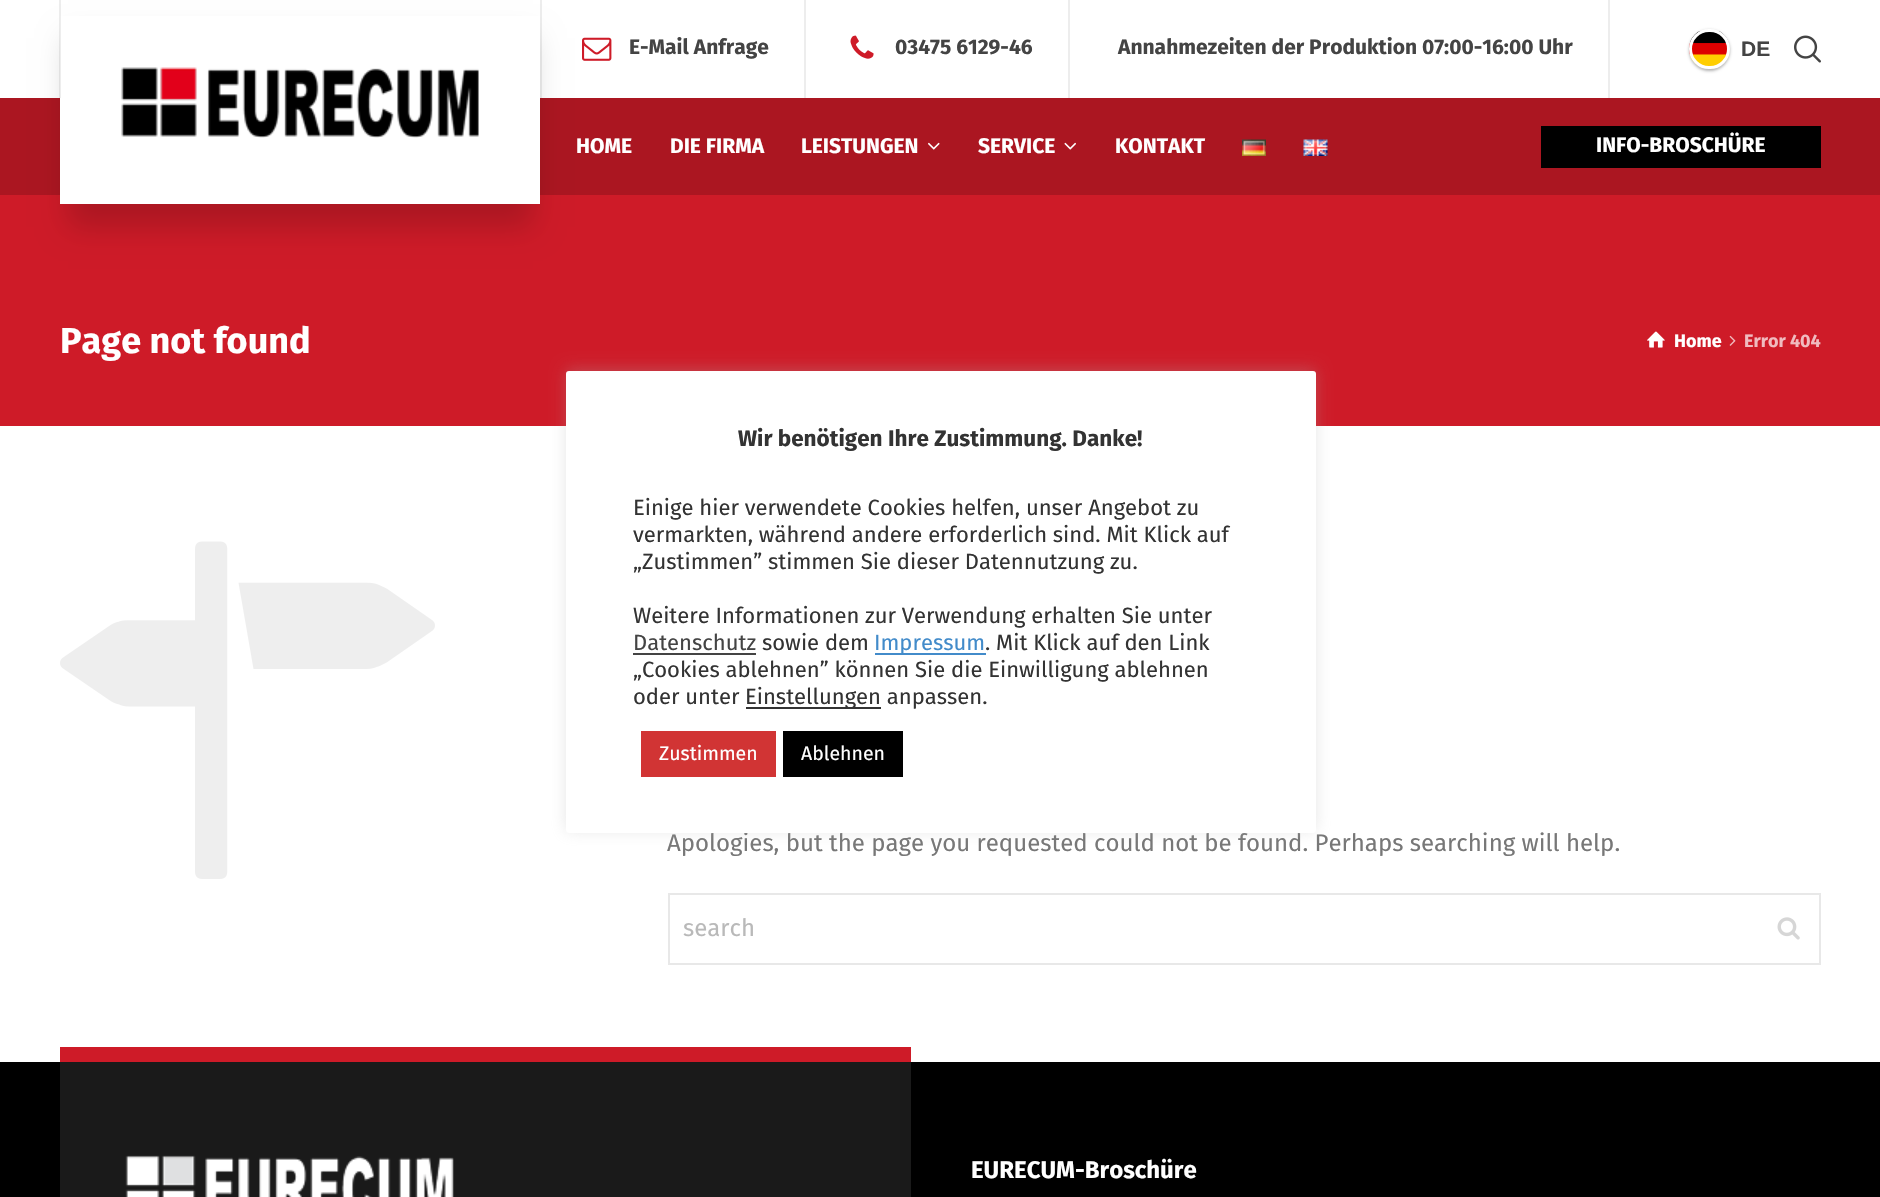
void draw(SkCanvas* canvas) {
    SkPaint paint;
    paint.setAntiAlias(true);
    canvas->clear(0xFFFFFFFF);
    paint.setColor(0xFFAB1621);
    canvas->drawRect(SkRect::MakeXYWH(0, 98, 1880, 97), paint);
    paint.setColor(0xFFCE1B28);
    canvas->drawRect(SkRect::MakeXYWH(0, 195, 1880, 231), paint);
    paint.setColor(0x2B000000);
    paint.setMaskFilter(SkMaskFilter::MakeBlur(kNormal_SkBlurStyle, 14));
    canvas->drawRect(SkRect::MakeXYWH(68, 38, 465, 189), paint);
    paint.setMaskFilter(nullptr);
    paint.setColor(0xFFFFFFFF);
    canvas->drawRect(SkRect::MakeXYWH(60, 16, 480, 188), paint);
    paint.setColor(0x12000000);
    canvas->drawRect(SkRect::MakeXYWH(59, 0, 2, 98), paint);
    canvas->drawImageRect(SkImages::DeferredFromEncodedData(SkData::MakeFromFileName("img1.png")), SkRect::MakeXYWH(121, 67, 358, 71), SkSamplingOptions());
    canvas->drawRect(SkRect::MakeXYWH(540, 0, 2, 98), paint);
    paint.setColor(0xFFEDEDED);
    canvas->drawRect(SkRect::MakeXYWH(804, 0, 2, 98), paint);
    canvas->drawImageRect(SkImages::DeferredFromEncodedData(SkData::MakeFromFileName("img2.png")), SkRect::MakeXYWH(582, 37, 30, 24), SkSamplingOptions());
    SkFont font1(fontMgr->matchFamilyStyle("Fira Sans", SkFontStyle::Bold()), 21);
    font1.setSubpixel(true);
    paint.setColor(0xFF444444);
    canvas->drawString("E-Mail Anfrage", 629, 54, font1, paint);
    paint.setColor(0xFFEDEDED);
    canvas->drawRect(SkRect::MakeXYWH(1068, 0, 2, 98), paint);
    canvas->drawImageRect(SkImages::DeferredFromEncodedData(SkData::MakeFromFileName("img3.png")), SkRect::MakeXYWH(850, 35, 24, 24), SkSamplingOptions());
    paint.setColor(0xFF444444);
    canvas->drawString("03475 6129-46", 895, 54, font1, paint);
    paint.setColor(0xFFEDEDED);
    canvas->drawRect(SkRect::MakeXYWH(1608, 0, 2, 98), paint);
    paint.setColor(0xFF444444);
    canvas->drawString("Annahmezeiten der Produktion 07:00-16:00 Uhr", 1118, 54, font1, paint);
    paint.setColor(0x4D000000);
    paint.setMaskFilter(SkMaskFilter::MakeBlur(kNormal_SkBlurStyle, 1.5f));
    canvas->drawRoundRect(SkRect::MakeXYWH(1689, 30, 41, 41), 20.5f, 20.5f, paint);
    paint.setMaskFilter(nullptr);
    canvas->drawImageRect(SkImages::DeferredFromEncodedData(SkData::MakeFromFileName("img4.png")), SkRect::MakeXYWH(1689, 31, 41, 35), SkSamplingOptions());
    paint.setStyle(SkPaint::kStroke_Style);
    paint.setStrokeWidth(3);
    paint.setColor(0xFFFFFFFF);
    canvas->drawRoundRect(SkRect::MakeXYWH(1690.5f, 30.5f, 38, 37), 18.5f, 18.5f, paint);
    SkFont font2(fontMgr->matchFamilyStyle("Liberation Sans", SkFontStyle::Bold()), 21);
    font2.setSubpixel(true);
    paint.setStyle(SkPaint::kFill_Style);
    paint.setColor(0xFF444444);
    canvas->drawString("DE", 1741, 56, font2, paint);
    canvas->drawImageRect(SkImages::DeferredFromEncodedData(SkData::MakeFromFileName("img5.png")), SkRect::MakeXYWH(1794, 35, 27, 28), SkSamplingOptions());
    paint.setColor(0xFFFFFFFF);
    canvas->drawString("HOME", 576, 153, font1, paint);
    canvas->drawString("DIE FIRMA", 670, 153, font1, paint);
    canvas->drawString("LEISTUNGEN", 801, 153, font1, paint);
    canvas->drawImageRect(SkImages::DeferredFromEncodedData(SkData::MakeFromFileName("img6.png")), SkRect::MakeXYWH(928, 142, 12, 8), SkSamplingOptions());
    canvas->drawString("SERVICE", 978, 153, font1, paint);
    canvas->drawImageRect(SkImages::DeferredFromEncodedData(SkData::MakeFromFileName("img7.png")), SkRect::MakeXYWH(1064, 142, 12, 8), SkSamplingOptions());
    canvas->drawString("KONTAKT", 1115, 153, font1, paint);
    canvas->drawImageRect(SkImages::DeferredFromEncodedData(SkData::MakeFromFileName("img8.png")), SkRect::MakeXYWH(1242, 139, 24, 17), SkSamplingOptions());
    canvas->drawImageRect(SkImages::DeferredFromEncodedData(SkData::MakeFromFileName("img9.png")), SkRect::MakeXYWH(1303, 139, 25, 17), SkSamplingOptions());
    paint.setColor(0xFF000000);
    canvas->drawRect(SkRect::MakeXYWH(1541, 126, 280, 42), paint);
    paint.setColor(0xFFFFFFFF);
    canvas->drawString("INFO-BROSCHÜRE", 1596, 152, font1, paint);
    SkFont font3(fontMgr->matchFamilyStyle("Fira Sans", SkFontStyle::Bold()), 36);
    font3.setSubpixel(true);
    canvas->drawString("Page not found", 60, 353, font3, paint);
    canvas->drawImageRect(SkImages::DeferredFromEncodedData(SkData::MakeFromFileName("img10.png")), SkRect::MakeXYWH(1647, 331, 18, 17), SkSamplingOptions());
    SkFont font4(fontMgr->matchFamilyStyle("Fira Sans", SkFontStyle::Bold()), 18);
    font4.setSubpixel(true);
    canvas->drawString("Home", 1674, 347, font4, paint);
    canvas->drawImageRect(SkImages::DeferredFromEncodedData(SkData::MakeFromFileName("img11.png")), SkRect::MakeXYWH(1729, 335, 7, 11), SkSamplingOptions());
    paint.setColor(0xFFF0BBBF);
    canvas->drawString("Error 404", 1744, 347, font4, paint);
    canvas->drawImageRect(SkImages::DeferredFromEncodedData(SkData::MakeFromFileName("img12.png")), SkRect::MakeXYWH(60, 541, 375, 338), SkSamplingOptions());
    SkFont font5(fontMgr->matchFamilyStyle("Fira Sans", SkFontStyle::Normal()), 24);
    font5.setSubpixel(true);
    paint.setColor(0xFF777777);
    canvas->drawString("Apologies, but the page you requested could not be found. Perhaps searching will help.", 667, 851, font5, paint);
    paint.setStyle(SkPaint::kStroke_Style);
    paint.setStrokeWidth(2);
    paint.setColor(0xFFE8E8E8);
    canvas->drawRect(SkRect::MakeXYWH(669, 894, 1151, 70), paint);
    paint.setStyle(SkPaint::kFill_Style);
    paint.setColor(0xFFB9B9B9);
    canvas->drawString("search", 683, 936, font5, paint);
    canvas->drawImageRect(SkImages::DeferredFromEncodedData(SkData::MakeFromFileName("img13.png")), SkRect::MakeXYWH(1777, 917, 23, 23), SkSamplingOptions());
    paint.setColor(0xFF000000);
    canvas->drawRect(SkRect::MakeXYWH(0, 1062, 1880, 135), paint);
    paint.setColor(0xFF1A1A1A);
    canvas->drawRect(SkRect::MakeXYWH(60, 1062, 851, 135), paint);
    paint.setColor(0xFFCE1B28);
    canvas->drawRect(SkRect::MakeXYWH(60, 1047, 851, 15), paint);
    canvas->drawImageRect(SkImages::DeferredFromEncodedData(SkData::MakeFromFileName("img14.png")), SkRect::MakeXYWH(125, 1155, 329, 42), SkSamplingOptions());
    SkFont font6(fontMgr->matchFamilyStyle("Fira Sans", SkFontStyle::Bold()), 24);
    font6.setSubpixel(true);
    paint.setColor(0xFFFFFFFF);
    canvas->drawString("EURECUM-Broschüre", 971, 1178, font6, paint);
    paint.setColor(0x4DACABAB);
    paint.setMaskFilter(SkMaskFilter::MakeBlur(kNormal_SkBlurStyle, 7.5f));
    canvas->drawRoundRect(SkRect::MakeXYWH(566, 369, 750, 462), 3, 3, paint);
    paint.setMaskFilter(nullptr);
    paint.setColor(0xFFFFFFFF);
    canvas->drawRoundRect(SkRect::MakeXYWH(566, 371, 750, 462), 3, 3, paint);
    SkFont font7(fontMgr->matchFamilyStyle("Fira Sans", SkFontStyle::Bold()), 22.5f);
    font7.setSubpixel(true);
    paint.setColor(0xFF333333);
    canvas->drawString("Wir benötigen Ihre Zustimmung. Danke!", 738, 446, font7, paint);
    SkFont font8(fontMgr->matchFamilyStyle("Fira Sans", SkFontStyle::Normal()), 22);
    font8.setSubpixel(true);
    canvas->drawString("Einige hier verwendete Cookies helfen, unser Angebot zu", 633, 515, font8, paint);
    canvas->drawString("vermarkten, während andere erforderlich sind. Mit Klick auf", 633, 542, font8, paint);
    canvas->drawString("„Zustimmen” stimmen Sie dieser Datennutzung zu.", 633, 569, font8, paint);
    canvas->drawString("Weitere Informationen zur Verwendung erhalten Sie unter", 633, 623, font8, paint);
    paint.setColor(0xFF444444);
    canvas->drawString("Datenschutz", 633, 650, font8, paint);
    canvas->drawRect(SkRect::MakeXYWH(633, 653, 123, 2), paint);
    paint.setColor(0xFF333333);
    canvas->drawString("sowie dem", 762, 650, font8, paint);
    paint.setColor(0xFF428BCA);
    canvas->drawRect(SkRect::MakeXYWH(875, 653, 111, 2), paint);
    canvas->drawString("Impressum", 874, 650, font8, paint);
    paint.setColor(0xFF333333);
    canvas->drawString(". Mit Klick auf den Link", 985, 650, font8, paint);
    canvas->drawString("„Cookies ablehnen” können Sie die Einwilligung ablehnen", 633, 677, font8, paint);
    canvas->drawString("oder unter", 633, 704, font8, paint);
    canvas->drawRect(SkRect::MakeXYWH(746, 707, 135, 2), paint);
    canvas->drawString("Einstellungen anpassen.", 745, 704, font8, paint);
    paint.setColor(0xFFD13434);
    canvas->drawRect(SkRect::MakeXYWH(641, 731, 135, 46), paint);
    SkFont font9(fontMgr->matchFamilyStyle("Fira Sans", SkFontStyle::Normal()), 19.5f);
    font9.setSubpixel(true);
    paint.setColor(0xFFFFFFFF);
    canvas->drawString("Zustimmen", 659, 760, font9, paint);
    paint.setColor(0xFF000000);
    canvas->drawRect(SkRect::MakeXYWH(783, 731, 120, 46), paint);
    paint.setColor(0xFFFFFFFF);
    canvas->drawString("Ablehnen", 801, 760, font9, paint);
}
